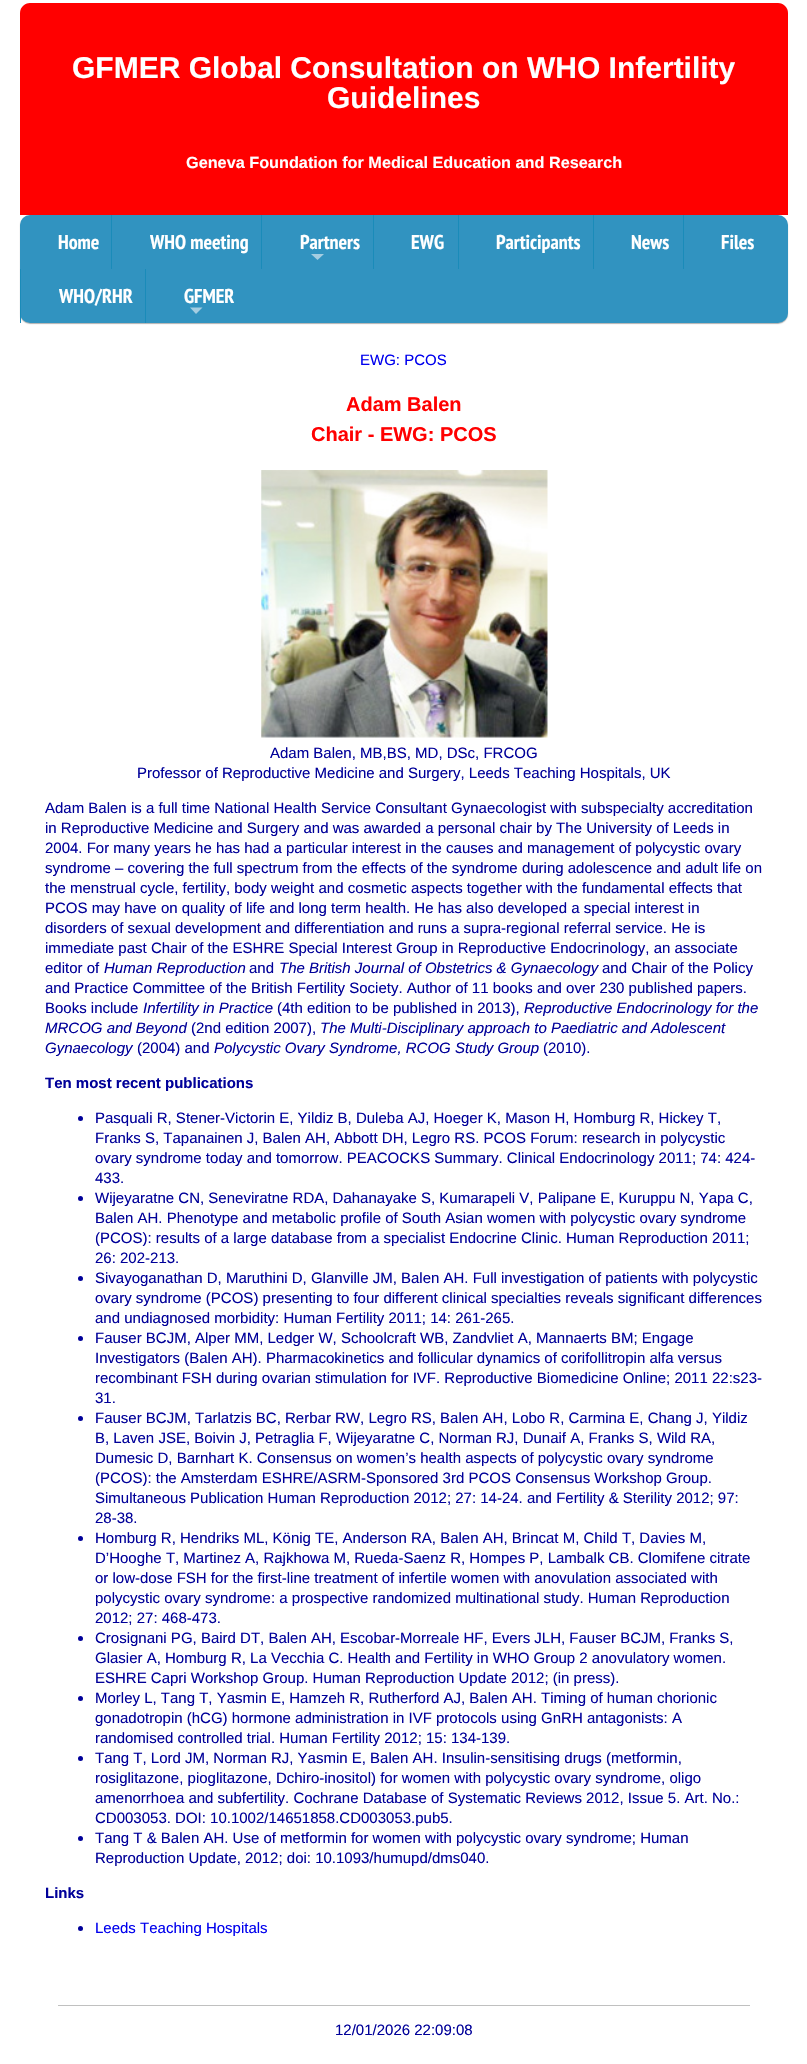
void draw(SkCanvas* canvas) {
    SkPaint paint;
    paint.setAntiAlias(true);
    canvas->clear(0xFFFFFFFF);
    paint.setColor(0xFFFF0000);
    canvas->drawPath(SkPathBuilder().moveTo(30, 3).lineTo(778, 3).cubicTo(783.5f, 3, 788, 7.5f, 788, 13).lineTo(788, 215).lineTo(20, 215).lineTo(20, 13).cubicTo(20, 7.5f, 24.5f, 3, 30, 3).close().detach(), paint);
    SkFont font1(fontMgr->matchFamilyStyle("Liberation Sans", SkFontStyle::Bold()), 30);
    font1.setSubpixel(true);
    paint.setColor(0xFFFFFFFF);
    canvas->drawString("GFMER Global Consultation on WHO Infertility", 72, 78, font1, paint);
    canvas->drawString("Guidelines", 327, 108, font1, paint);
    SkFont font2(fontMgr->matchFamilyStyle("Liberation Sans", SkFontStyle::Bold()), 16.25f);
    font2.setSubpixel(true);
    canvas->drawString("Geneva Foundation for Medical Education and Research", 186, 168, font2, paint);
    paint.setColor(0x4D000000);
    paint.setMaskFilter(SkMaskFilter::MakeBlur(kNormal_SkBlurStyle, 0.5f));
    canvas->drawRoundRect(SkRect::MakeXYWH(20, 216, 768, 108), 10, 10, paint);
    paint.setMaskFilter(nullptr);
    paint.setColor(0xFF3193C0);
    canvas->drawRoundRect(SkRect::MakeXYWH(20, 215, 768, 108), 10, 10, paint);
    SkFont font3(fontMgr->matchFamilyStyle("PT Sans Narrow", SkFontStyle::Bold()), 20);
    font3.setSubpixel(true);
    paint.setColor(0xFFFFFFFF);
    canvas->drawString("Home", 58, 249, font3, paint);
    paint.setColor(0xFF1A8BB9);
    canvas->drawRect(SkRect::MakeXYWH(111, 215, 1, 54), paint);
    paint.setColor(0xFFFFFFFF);
    canvas->drawString("WHO meeting", 150, 249, font3, paint);
    paint.setColor(0xFF1A8BB9);
    canvas->drawRect(SkRect::MakeXYWH(261, 215, 1, 54), paint);
    paint.setColor(0xFFFFFFFF);
    canvas->drawString("Partners", 300, 249, font3, paint);
    paint.setColor(0xFFA4CDE1);
    canvas->drawPath(SkPathBuilder().moveTo(311, 254).lineTo(324, 254).lineTo(317.5f, 260).close().detach(), paint);
    paint.setColor(0xFF1A8BB9);
    canvas->drawRect(SkRect::MakeXYWH(373, 215, 1, 54), paint);
    paint.setColor(0xFFFFFFFF);
    canvas->drawString("EWG", 411, 249, font3, paint);
    paint.setColor(0xFF1A8BB9);
    canvas->drawRect(SkRect::MakeXYWH(458, 215, 1, 54), paint);
    paint.setColor(0xFFFFFFFF);
    canvas->drawString("Participants", 496, 249, font3, paint);
    paint.setColor(0xFF1A8BB9);
    canvas->drawRect(SkRect::MakeXYWH(593, 215, 1, 54), paint);
    paint.setColor(0xFFFFFFFF);
    canvas->drawString("News", 631, 249, font3, paint);
    paint.setColor(0xFF1A8BB9);
    canvas->drawRect(SkRect::MakeXYWH(683, 215, 1, 54), paint);
    paint.setColor(0xFFFFFFFF);
    canvas->drawString("Files", 721, 249, font3, paint);
    paint.setColor(0xFF1A8BB9);
    canvas->drawRect(SkRect::MakeXYWH(20, 269, 1, 54), paint);
    paint.setColor(0xFFFFFFFF);
    canvas->drawString("WHO/RHR", 59, 303, font3, paint);
    paint.setColor(0xFF1A8BB9);
    canvas->drawRect(SkRect::MakeXYWH(145, 269, 1, 54), paint);
    paint.setColor(0xFFFFFFFF);
    canvas->drawString("GFMER", 184, 303, font3, paint);
    paint.setColor(0xFFA4CDE1);
    canvas->drawPath(SkPathBuilder().moveTo(190, 307.5f).lineTo(202.5f, 307.5f).lineTo(196, 314).close().detach(), paint);
    SkFont font4(fontMgr->matchFamilyStyle("Liberation Sans", SkFontStyle::Normal()), 15);
    font4.setSubpixel(true);
    paint.setColor(0xFF0000EE);
    canvas->drawString("EWG: PCOS", 360, 365, font4, paint);
    SkFont font5(fontMgr->matchFamilyStyle("Liberation Sans", SkFontStyle::Bold()), 20);
    font5.setSubpixel(true);
    paint.setColor(0xFFFF0000);
    canvas->drawString("Adam Balen", 346, 411, font5, paint);
    canvas->drawString("Chair - EWG: PCOS", 311, 441, font5, paint);
    canvas->drawImageRect(SkImages::DeferredFromEncodedData(SkData::MakeFromFileName("img1.png")), SkRect::MakeXYWH(261, 470, 287, 268), SkSamplingOptions());
    paint.setColor(0xFF000099);
    canvas->drawString("Adam Balen, MB,BS, MD, DSc, FRCOG", 270, 758, font4, paint);
    canvas->drawString("Professor of Reproductive Medicine and Surgery, Leeds Teaching Hospitals, UK", 137, 778, font4, paint);
    canvas->drawString("Adam Balen is a full time National Health Service Consultant Gynaecologist with subspecialty accreditation", 45, 813, font4, paint);
    canvas->drawString("in Reproductive Medicine and Surgery and was awarded a personal chair by The University of Leeds in", 45, 833, font4, paint);
    canvas->drawString("2004. For many years he has had a particular interest in the causes and management of polycystic ovary", 45, 853, font4, paint);
    canvas->drawString("syndrome – covering the full spectrum from the effects of the syndrome during adolescence and adult life on", 45, 873, font4, paint);
    canvas->drawString("the menstrual cycle, fertility, body weight and cosmetic aspects together with the fundamental effects that", 45, 893, font4, paint);
    canvas->drawString("PCOS may have on quality of life and long term health. He has also developed a special interest in", 45, 913, font4, paint);
    canvas->drawString("disorders of sexual development and differentiation and runs a supra-regional referral service. He is", 45, 933, font4, paint);
    canvas->drawString("immediate past Chair of the ESHRE Special Interest Group in Reproductive Endocrinology, an associate", 45, 953, font4, paint);
    canvas->drawString("editor of", 45, 973, font4, paint);
    SkFont font6(fontMgr->matchFamilyStyle("Liberation Sans", SkFontStyle::Italic()), 15);
    font6.setSubpixel(true);
    canvas->drawString("Human Reproduction", 104, 973, font6, paint);
    canvas->drawString("and", 249, 973, font4, paint);
    canvas->drawString("The British Journal of Obstetrics & Gynaecology", 279, 973, font6, paint);
    canvas->drawString("and Chair of the Policy", 602, 973, font4, paint);
    canvas->drawString("and Practice Committee of the British Fertility Society. Author of 11 books and over 230 published papers.", 45, 993, font4, paint);
    canvas->drawString("Books include", 45, 1013, font4, paint);
    canvas->drawString("Infertility in Practice", 143, 1013, font6, paint);
    canvas->drawString("(4th edition to be published in 2013),", 277, 1013, font4, paint);
    canvas->drawString("Reproductive Endocrinology for the", 524, 1013, font6, paint);
    canvas->drawString("MRCOG and Beyond", 45, 1033, font6, paint);
    canvas->drawString("(2nd edition 2007),", 191, 1033, font4, paint);
    canvas->drawString("The Multi-Disciplinary approach to Paediatric and Adolescent", 320, 1033, font6, paint);
    canvas->drawString("Gynaecology", 45, 1053, font6, paint);
    canvas->drawString("(2004) and", 137, 1053, font4, paint);
    canvas->drawString("Polycystic Ovary Syndrome, RCOG Study Group", 214, 1053, font6, paint);
    canvas->drawString("(2010).", 543, 1053, font4, paint);
    SkFont font7(fontMgr->matchFamilyStyle("Liberation Sans", SkFontStyle::Bold()), 15);
    font7.setSubpixel(true);
    canvas->drawString("Ten most recent publications", 45, 1088, font7, paint);
    canvas->drawCircle(80.5f, 1118.5f, 2.5f, paint);
    canvas->drawString("Pasquali R, Stener-Victorin E, Yildiz B, Duleba AJ, Hoeger K, Mason H, Homburg R, Hickey T,", 95, 1123, font4, paint);
    canvas->drawString("Franks S, Tapanainen J, Balen AH, Abbott DH, Legro RS. PCOS Forum: research in polycystic", 95, 1143, font4, paint);
    canvas->drawString("ovary syndrome today and tomorrow. PEACOCKS Summary. Clinical Endocrinology 2011; 74: 424-", 95, 1163, font4, paint);
    canvas->drawString("433.", 95, 1183, font4, paint);
    canvas->drawCircle(80.5f, 1198.5f, 2.5f, paint);
    canvas->drawString("Wijeyaratne CN, Seneviratne RDA, Dahanayake S, Kumarapeli V, Palipane E, Kuruppu N, Yapa C,", 95, 1203, font4, paint);
    canvas->drawString("Balen AH. Phenotype and metabolic profile of South Asian women with polycystic ovary syndrome", 95, 1223, font4, paint);
    canvas->drawString("(PCOS): results of a large database from a specialist Endocrine Clinic. Human Reproduction 2011;", 95, 1243, font4, paint);
    canvas->drawString("26: 202-213.", 95, 1263, font4, paint);
    canvas->drawCircle(80.5f, 1278.5f, 2.5f, paint);
    canvas->drawString("Sivayoganathan D, Maruthini D, Glanville JM, Balen AH. Full investigation of patients with polycystic", 95, 1283, font4, paint);
    canvas->drawString("ovary syndrome (PCOS) presenting to four different clinical specialties reveals significant differences", 95, 1303, font4, paint);
    canvas->drawString("and undiagnosed morbidity: Human Fertility 2011; 14: 261-265.", 95, 1323, font4, paint);
    canvas->drawCircle(80.5f, 1338.5f, 2.5f, paint);
    canvas->drawString("Fauser BCJM, Alper MM, Ledger W, Schoolcraft WB, Zandvliet A, Mannaerts BM; Engage", 95, 1343, font4, paint);
    canvas->drawString("Investigators (Balen AH). Pharmacokinetics and follicular dynamics of corifollitropin alfa versus", 95, 1363, font4, paint);
    canvas->drawString("recombinant FSH during ovarian stimulation for IVF. Reproductive Biomedicine Online; 2011 22:s23-", 95, 1383, font4, paint);
    canvas->drawString("31.", 95, 1403, font4, paint);
    canvas->drawCircle(80.5f, 1418.5f, 2.5f, paint);
    canvas->drawString("Fauser BCJM, Tarlatzis BC, Rerbar RW, Legro RS, Balen AH, Lobo R, Carmina E, Chang J, Yildiz", 95, 1423, font4, paint);
    canvas->drawString("B, Laven JSE, Boivin J, Petraglia F, Wijeyaratne C, Norman RJ, Dunaif A, Franks S, Wild RA,", 95, 1443, font4, paint);
    canvas->drawString("Dumesic D, Barnhart K. Consensus on women’s health aspects of polycystic ovary syndrome", 95, 1463, font4, paint);
    canvas->drawString("(PCOS): the Amsterdam ESHRE/ASRM-Sponsored 3rd PCOS Consensus Workshop Group.", 95, 1483, font4, paint);
    canvas->drawString("Simultaneous Publication Human Reproduction 2012; 27: 14-24. and Fertility & Sterility 2012; 97:", 95, 1503, font4, paint);
    canvas->drawString("28-38.", 95, 1523, font4, paint);
    canvas->drawCircle(80.5f, 1538.5f, 2.5f, paint);
    canvas->drawString("Homburg R, Hendriks ML, König TE, Anderson RA, Balen AH, Brincat M, Child T, Davies M,", 95, 1543, font4, paint);
    canvas->drawString("D’Hooghe T, Martinez A, Rajkhowa M, Rueda-Saenz R, Hompes P, Lambalk CB. Clomifene citrate", 95, 1563, font4, paint);
    canvas->drawString("or low-dose FSH for the first-line treatment of infertile women with anovulation associated with", 95, 1583, font4, paint);
    canvas->drawString("polycystic ovary syndrome: a prospective randomized multinational study. Human Reproduction", 95, 1603, font4, paint);
    canvas->drawString("2012; 27: 468-473.", 95, 1623, font4, paint);
    canvas->drawCircle(80.5f, 1638.5f, 2.5f, paint);
    canvas->drawString("Crosignani PG, Baird DT, Balen AH, Escobar-Morreale HF, Evers JLH, Fauser BCJM, Franks S,", 95, 1643, font4, paint);
    canvas->drawString("Glasier A, Homburg R, La Vecchia C. Health and Fertility in WHO Group 2 anovulatory women.", 95, 1663, font4, paint);
    canvas->drawString("ESHRE Capri Workshop Group. Human Reproduction Update 2012; (in press).", 95, 1683, font4, paint);
    canvas->drawCircle(80.5f, 1698.5f, 2.5f, paint);
    canvas->drawString("Morley L, Tang T, Yasmin E, Hamzeh R, Rutherford AJ, Balen AH. Timing of human chorionic", 95, 1703, font4, paint);
    canvas->drawString("gonadotropin (hCG) hormone administration in IVF protocols using GnRH antagonists: A", 95, 1723, font4, paint);
    canvas->drawString("randomised controlled trial. Human Fertility 2012; 15: 134-139.", 95, 1743, font4, paint);
    canvas->drawCircle(80.5f, 1758.5f, 2.5f, paint);
    canvas->drawString("Tang T, Lord JM, Norman RJ, Yasmin E, Balen AH. Insulin-sensitising drugs (metformin,", 95, 1763, font4, paint);
    canvas->drawString("rosiglitazone, pioglitazone, Dchiro-inositol) for women with polycystic ovary syndrome, oligo", 95, 1783, font4, paint);
    canvas->drawString("amenorrhoea and subfertility. Cochrane Database of Systematic Reviews 2012, Issue 5. Art. No.:", 95, 1803, font4, paint);
    canvas->drawString("CD003053. DOI: 10.1002/14651858.CD003053.pub5.", 95, 1823, font4, paint);
    canvas->drawCircle(80.5f, 1838.5f, 2.5f, paint);
    canvas->drawString("Tang T & Balen AH. Use of metformin for women with polycystic ovary syndrome; Human", 95, 1843, font4, paint);
    canvas->drawString("Reproduction Update, 2012; doi: 10.1093/humupd/dms040.", 95, 1863, font4, paint);
    canvas->drawString("Links", 45, 1898, font7, paint);
    canvas->drawCircle(80.5f, 1928.5f, 2.5f, paint);
    paint.setColor(0xFF0000EE);
    canvas->drawString("Leeds Teaching Hospitals", 95, 1933, font4, paint);
    paint.setColor(0xFFC0C0C0);
    canvas->drawRect(SkRect::MakeXYWH(58, 2005, 692, 1), paint);
    paint.setColor(0xFF000099);
    canvas->drawString("12/01/2026 22:09:08", 335, 2035, font4, paint);
}
